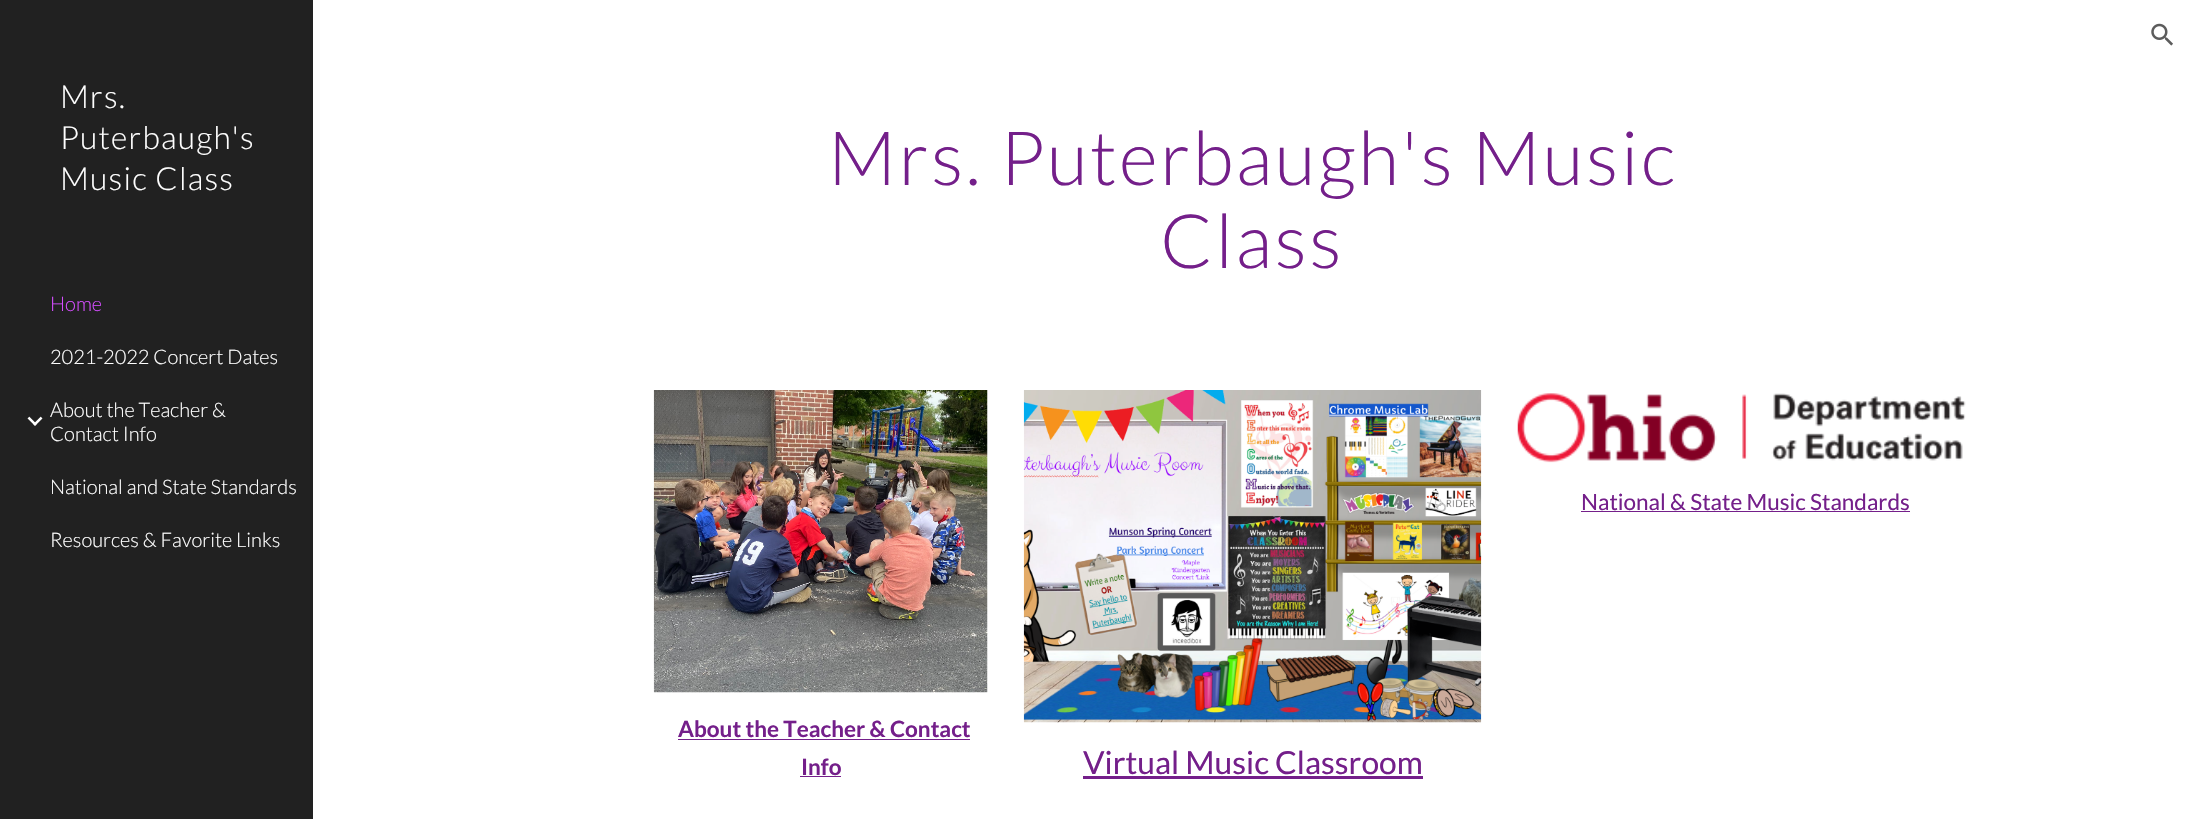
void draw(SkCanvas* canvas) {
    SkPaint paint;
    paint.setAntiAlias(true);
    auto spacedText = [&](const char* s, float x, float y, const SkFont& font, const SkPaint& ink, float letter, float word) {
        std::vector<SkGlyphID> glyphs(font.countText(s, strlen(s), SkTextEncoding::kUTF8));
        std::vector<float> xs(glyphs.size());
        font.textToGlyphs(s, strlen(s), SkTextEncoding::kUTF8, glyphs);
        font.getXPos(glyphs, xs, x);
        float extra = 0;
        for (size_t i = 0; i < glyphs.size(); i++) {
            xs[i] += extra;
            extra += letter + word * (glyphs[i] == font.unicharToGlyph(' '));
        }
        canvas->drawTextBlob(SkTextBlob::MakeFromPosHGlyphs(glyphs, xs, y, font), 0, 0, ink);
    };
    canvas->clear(0xFFFFFFFF);
    canvas->drawImageRect(SkImages::DeferredFromEncodedData(SkData::MakeFromFileName("img1.png")), SkRect::MakeXYWH(2151, 23, 22, 23), SkSamplingOptions());
    paint.setColor(0xFF212121);
    canvas->drawRect(SkRect::MakeXYWH(0, 0, 313, 819), paint);
    SkFont font1(fontMgr->matchFamilyStyle("Lato", SkFontStyle(300, SkFontStyle::kNormal_Width, SkFontStyle::kUpright_Slant)), 31.75f);
    font1.setSubpixel(true);
    paint.setColor(0xFFFFFFFF);
    spacedText("Mrs.", 60, 108, font1, paint, 1.25f, 0);
    spacedText("Puterbaugh's", 60, 149, font1, paint, 1.25f, 0);
    spacedText("Music Class", 60, 190, font1, paint, 1.25f, 0);
    SkFont font2(fontMgr->matchFamilyStyle("Lato", SkFontStyle(300, SkFontStyle::kNormal_Width, SkFontStyle::kUpright_Slant)), 20);
    font2.setSubpixel(true);
    paint.setColor(0xFFD54DFF);
    canvas->drawString("Home", 50, 311, font2, paint);
    paint.setColor(0xFFFFFFFF);
    canvas->drawString("2021-2022 Concert Dates", 50, 364, font2, paint);
    canvas->drawImageRect(SkImages::DeferredFromEncodedData(SkData::MakeFromFileName("img2.png")), SkRect::MakeXYWH(27, 416, 16, 10), SkSamplingOptions());
    canvas->drawString("About the Teacher &", 50, 417, font2, paint);
    canvas->drawString("Contact Info", 50, 441, font2, paint);
    canvas->drawString("National and State Standards", 50, 494, font2, paint);
    canvas->drawString("Resources & Favorite Links", 50, 547, font2, paint);
    SkFont font3(fontMgr->matchFamilyStyle("Lato", SkFontStyle(300, SkFontStyle::kNormal_Width, SkFontStyle::kUpright_Slant)), 75);
    font3.setSubpixel(true);
    paint.setColor(0xFF741F8A);
    spacedText("Mrs. Puterbaugh's Music", 828, 185, font3, paint, 2.5f, 0);
    spacedText("Class", 1160, 268, font3, paint, 2.5f, 0);
    canvas->drawImageRect(SkImages::DeferredFromEncodedData(SkData::MakeFromFileName("img3.png")), SkRect::MakeXYWH(1517, 393, 449, 70), SkSamplingOptions());
    SkFont font4(fontMgr->matchFamilyStyle("Lato", SkFontStyle::Normal()), 22.5f);
    font4.setSubpixel(true);
    canvas->drawString("National & State Music Standards", 1581, 510, font4, paint);
    canvas->drawRect(SkRect::MakeXYWH(1581, 511, 329, 1), paint);
    canvas->drawImageRect(SkImages::DeferredFromEncodedData(SkData::MakeFromFileName("img4.png")), SkRect::MakeXYWH(653, 390, 335, 303), SkSamplingOptions());
    SkFont font5(fontMgr->matchFamilyStyle("Lato", SkFontStyle::Bold()), 22.5f);
    font5.setSubpixel(true);
    canvas->drawString("About the Teacher & Contact", 678, 737, font5, paint);
    canvas->drawRect(SkRect::MakeXYWH(678, 739, 292, 1), paint);
    canvas->drawString("Info", 801, 775, font5, paint);
    canvas->drawRect(SkRect::MakeXYWH(800, 776, 41, 1), paint);
    canvas->drawImageRect(SkImages::DeferredFromEncodedData(SkData::MakeFromFileName("img5.png")), SkRect::MakeXYWH(1023, 390, 459, 333), SkSamplingOptions());
    SkFont font6(fontMgr->matchFamilyStyle("Lato", SkFontStyle::Normal()), 31.75f);
    font6.setSubpixel(true);
    canvas->drawString("Virtual Music Classroom", 1083, 774, font6, paint);
    canvas->drawRect(SkRect::MakeXYWH(1083, 776, 340, 3), paint);
}
